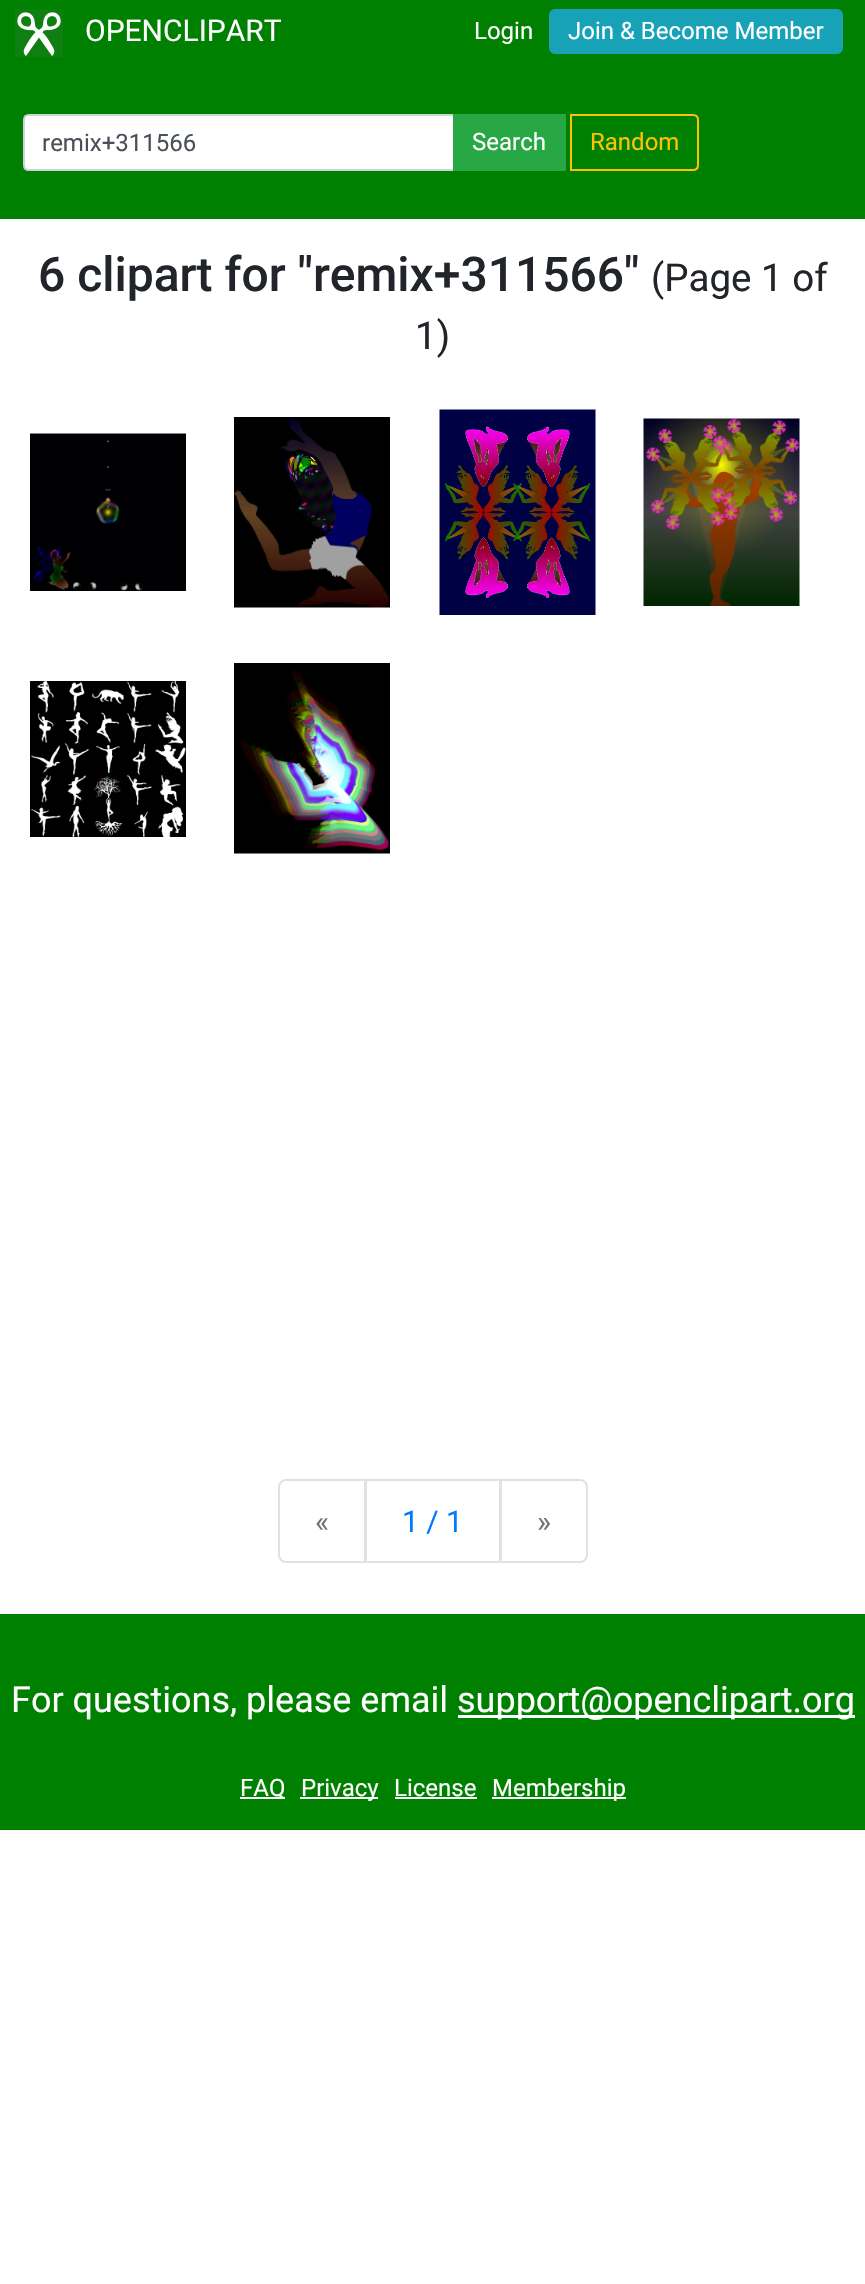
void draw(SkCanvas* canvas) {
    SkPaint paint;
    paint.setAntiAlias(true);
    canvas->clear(0xFFFFFFFF);
    paint.setColor(0xFF008000);
    canvas->drawRect(SkRect::MakeXYWH(0, 0, 865, 219), paint);
    canvas->drawImageRect(SkImages::DeferredFromEncodedData(SkData::MakeFromFileName("img1.png")), SkRect::MakeXYWH(15, 9, 48, 48), SkSamplingOptions());
    SkFont font1(fontMgr->matchFamilyStyle("Roboto", SkFontStyle::Normal()), 30);
    font1.setSubpixel(true);
    paint.setColor(0xFFFFFFFF);
    canvas->drawString("OPENCLIPART", 85, 41, font1, paint);
    SkFont font2(fontMgr->matchFamilyStyle("Roboto", SkFontStyle::Normal()), 24);
    font2.setSubpixel(true);
    canvas->drawString("Login", 474, 39, font2, paint);
    paint.setColor(0xFF17A2B8);
    canvas->drawRoundRect(SkRect::MakeXYWH(550, 10, 292, 43), 5, 5, paint);
    paint.setStyle(SkPaint::kStroke_Style);
    paint.setStrokeWidth(2);
    canvas->drawRoundRect(SkRect::MakeXYWH(550, 10, 292, 43), 5, 5, paint);
    paint.setStyle(SkPaint::kFill_Style);
    paint.setColor(0xFFFFFFFF);
    canvas->drawString("Join & Become Member", 568, 39, font2, paint);
    canvas->drawPath(SkPathBuilder().moveTo(29, 115).lineTo(454, 115).lineTo(454, 170).lineTo(29, 170).cubicTo(26, 170, 24, 168, 24, 165).lineTo(24, 120).cubicTo(24, 117, 26, 115, 29, 115).close().detach(), paint);
    paint.setStyle(SkPaint::kStroke_Style);
    paint.setColor(0xFFCED4DA);
    canvas->drawPath(SkPathBuilder().moveTo(29, 115).lineTo(454, 115).lineTo(454, 170).lineTo(29, 170).cubicTo(26, 170, 24, 168, 24, 165).lineTo(24, 120).cubicTo(24, 117, 26, 115, 29, 115).close().detach(), paint);
    paint.setStyle(SkPaint::kFill_Style);
    paint.setColor(0xFF495057);
    canvas->drawString("remix+311566", 42, 151, font2, paint);
    paint.setColor(0xFF28A745);
    canvas->drawRect(SkRect::MakeXYWH(453, 114, 113, 57), paint);
    paint.setColor(0xFFFFFFFF);
    canvas->drawString("Search", 472, 150, font2, paint);
    paint.setStyle(SkPaint::kStroke_Style);
    paint.setColor(0xFFFFC107);
    canvas->drawPath(SkPathBuilder().moveTo(571, 115).lineTo(693, 115).cubicTo(696, 115, 698, 117, 698, 120).lineTo(698, 165).cubicTo(698, 168, 696, 170, 693, 170).lineTo(571, 170).close().detach(), paint);
    paint.setStyle(SkPaint::kFill_Style);
    canvas->drawString("Random", 590, 150, font2, paint);
    SkFont font3(fontMgr->matchFamilyStyle("Roboto", SkFontStyle(500, SkFontStyle::kNormal_Width, SkFontStyle::kUpright_Slant)), 48);
    font3.setSubpixel(true);
    paint.setColor(0xFF212529);
    canvas->drawString("6 clipart for \"remix+311566\"", 38, 291, font3, paint);
    SkFont font4(fontMgr->matchFamilyStyle("Roboto", SkFontStyle::Normal()), 38.5f);
    font4.setSubpixel(true);
    canvas->drawString("(Page 1 of", 651, 291, font4, paint);
    canvas->drawString("1)", 415, 349, font4, paint);
    canvas->drawImageRect(SkImages::DeferredFromEncodedData(SkData::MakeFromFileName("img2.png")), SkRect::MakeXYWH(30, 433, 156, 158), SkSamplingOptions());
    canvas->drawImageRect(SkImages::DeferredFromEncodedData(SkData::MakeFromFileName("img3.png")), SkRect::MakeXYWH(234, 417, 156, 191), SkSamplingOptions());
    canvas->drawImageRect(SkImages::DeferredFromEncodedData(SkData::MakeFromFileName("img4.png")), SkRect::MakeXYWH(439, 409, 157, 206), SkSamplingOptions());
    canvas->drawImageRect(SkImages::DeferredFromEncodedData(SkData::MakeFromFileName("img5.png")), SkRect::MakeXYWH(643, 418, 157, 188), SkSamplingOptions());
    canvas->drawImageRect(SkImages::DeferredFromEncodedData(SkData::MakeFromFileName("img6.png")), SkRect::MakeXYWH(30, 681, 156, 156), SkSamplingOptions());
    canvas->drawImageRect(SkImages::DeferredFromEncodedData(SkData::MakeFromFileName("img7.png")), SkRect::MakeXYWH(234, 663, 156, 191), SkSamplingOptions());
    paint.setStyle(SkPaint::kStroke_Style);
    paint.setColor(0xFFDEE2E6);
    canvas->drawPath(SkPathBuilder().moveTo(286, 1480).lineTo(365, 1480).lineTo(365, 1562).lineTo(286, 1562).cubicTo(282, 1562, 279, 1559, 279, 1555).lineTo(279, 1487).cubicTo(279, 1483, 282, 1480, 286, 1480).close().detach(), paint);
    paint.setStyle(SkPaint::kFill_Style);
    paint.setColor(0xFF6C757D);
    canvas->drawString("«", 315, 1532, font1, paint);
    paint.setStyle(SkPaint::kStroke_Style);
    paint.setColor(0xFFDEE2E6);
    canvas->drawRect(SkRect::MakeXYWH(366, 1480, 134, 82), paint);
    paint.setStyle(SkPaint::kFill_Style);
    paint.setColor(0xFF007BFF);
    canvas->drawString("1 / 1", 402, 1532, font1, paint);
    paint.setColor(0xFFFFFFFF);
    canvas->drawPath(SkPathBuilder().moveTo(501, 1480).lineTo(580, 1480).cubicTo(584, 1480, 587, 1483, 587, 1487).lineTo(587, 1555).cubicTo(587, 1559, 584, 1562, 580, 1562).lineTo(501, 1562).close().detach(), paint);
    paint.setStyle(SkPaint::kStroke_Style);
    paint.setColor(0xFFDEE2E6);
    canvas->drawPath(SkPathBuilder().moveTo(501, 1480).lineTo(580, 1480).cubicTo(584, 1480, 587, 1483, 587, 1487).lineTo(587, 1555).cubicTo(587, 1559, 584, 1562, 580, 1562).lineTo(501, 1562).close().detach(), paint);
    paint.setStyle(SkPaint::kFill_Style);
    paint.setColor(0xFF6C757D);
    canvas->drawString("»", 537, 1532, font1, paint);
    paint.setColor(0xFF008000);
    canvas->drawRect(SkRect::MakeXYWH(0, 1614, 865, 216), paint);
    SkFont font5(fontMgr->matchFamilyStyle("Roboto", SkFontStyle::Normal()), 36);
    font5.setSubpixel(true);
    paint.setColor(0xFFFFFFFF);
    canvas->drawString("For questions, please email", 11, 1712, font5, paint);
    canvas->drawRect(SkRect::MakeXYWH(458, 1715, 397, 3), paint);
    canvas->drawString("support@openclipart.org", 457, 1712, font5, paint);
    canvas->drawRect(SkRect::MakeXYWH(240, 1797, 45, 2), paint);
    canvas->drawString("FAQ", 240, 1796, font2, paint);
    canvas->drawRect(SkRect::MakeXYWH(300, 1797, 78, 2), paint);
    canvas->drawString("Privacy", 301, 1796, font2, paint);
    canvas->drawString("License", 394, 1796, font2, paint);
    canvas->drawRect(SkRect::MakeXYWH(395, 1797, 82, 2), paint);
    canvas->drawRect(SkRect::MakeXYWH(492, 1797, 134, 2), paint);
    canvas->drawString("Membership", 492, 1796, font2, paint);
}
